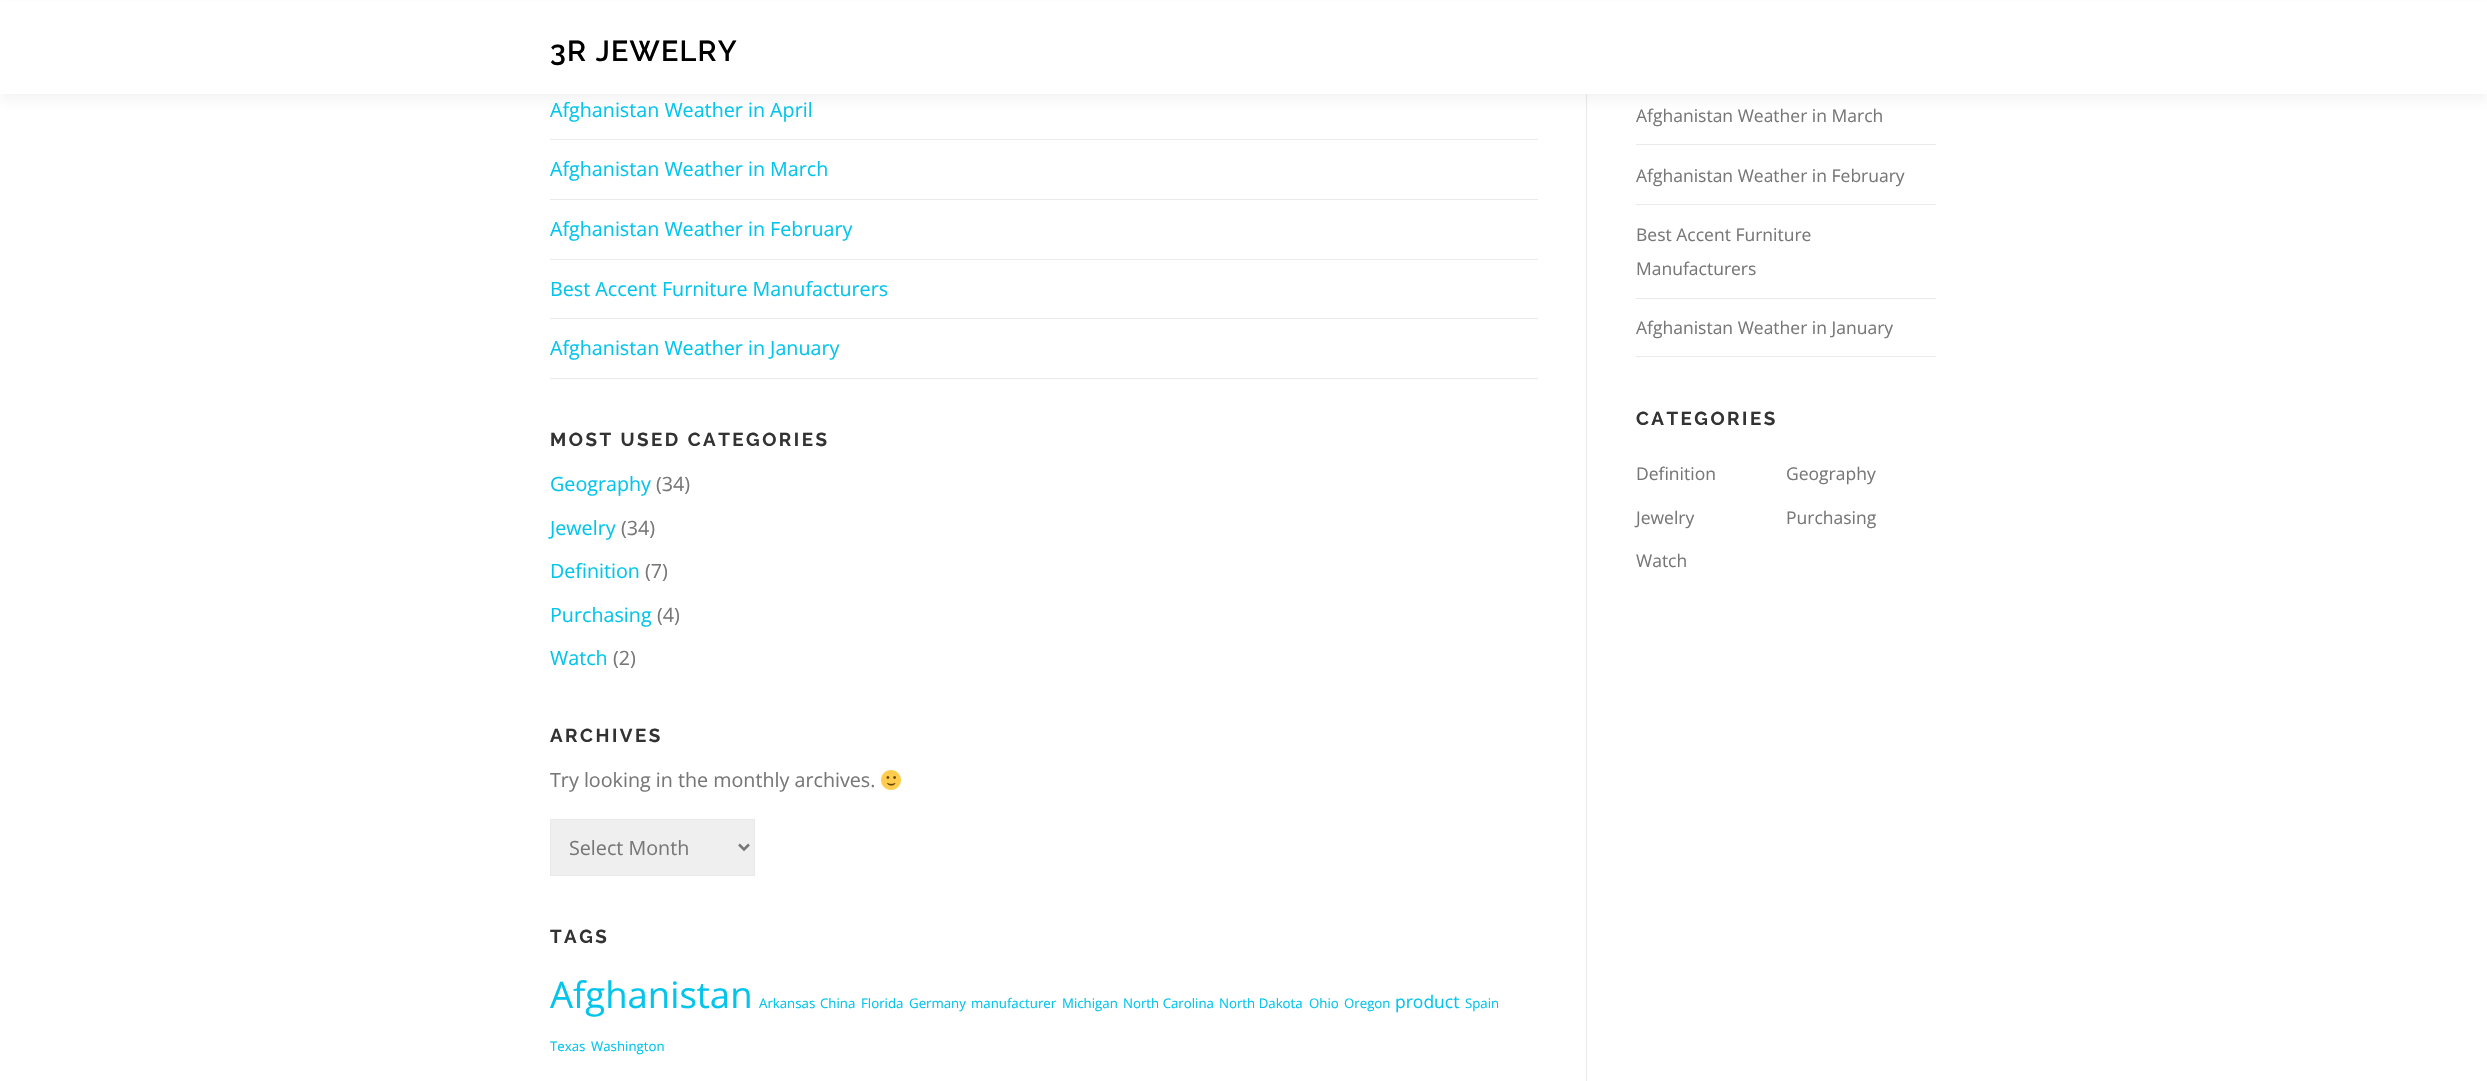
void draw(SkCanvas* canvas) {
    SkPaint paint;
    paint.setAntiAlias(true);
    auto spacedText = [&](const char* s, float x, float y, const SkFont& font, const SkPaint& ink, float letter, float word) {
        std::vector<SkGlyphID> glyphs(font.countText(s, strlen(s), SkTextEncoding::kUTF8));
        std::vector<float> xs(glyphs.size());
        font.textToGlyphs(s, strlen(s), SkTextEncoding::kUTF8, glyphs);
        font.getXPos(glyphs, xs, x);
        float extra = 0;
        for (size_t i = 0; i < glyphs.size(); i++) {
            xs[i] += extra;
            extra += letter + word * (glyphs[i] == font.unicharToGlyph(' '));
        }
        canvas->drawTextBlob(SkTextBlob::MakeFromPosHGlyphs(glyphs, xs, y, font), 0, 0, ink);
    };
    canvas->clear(0xFFFFFFFF);
    paint.setColor(0xFFE9E9E9);
    canvas->drawRect(SkRect::MakeXYWH(1586, 94, 1, 987), paint);
    paint.setColor(0x0F323232);
    paint.setMaskFilter(SkMaskFilter::MakeBlur(kNormal_SkBlurStyle, 6));
    canvas->drawRect(SkRect::MakeXYWH(0, 6, 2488, 94), paint);
    paint.setMaskFilter(nullptr);
    paint.setColor(0xFFFFFFFF);
    canvas->drawRect(SkRect::MakeXYWH(0, 1, 2487, 93), paint);
    SkFont font1(fontMgr->matchFamilyStyle("Raleway", SkFontStyle(600, SkFontStyle::kNormal_Width, SkFontStyle::kUpright_Slant)), 28.75f);
    font1.setSubpixel(true);
    paint.setColor(0xFF000000);
    spacedText("3R JEWELRY", 550, 61, font1, paint, 1.25f, 0);
    paint.setColor(0xFFE9E9E9);
    canvas->drawRect(SkRect::MakeXYWH(550, 139, 988, 1), paint);
    SkFont font2(fontMgr->matchFamilyStyle("Open Sans", SkFontStyle::Normal()), 19.7f);
    font2.setSubpixel(true);
    paint.setColor(0xFF03C4EB);
    canvas->drawString("Afghanistan Weather in April", 550, 117, font2, paint);
    paint.setColor(0xFFE9E9E9);
    canvas->drawRect(SkRect::MakeXYWH(550, 199, 988, 1), paint);
    paint.setColor(0xFF03C4EB);
    canvas->drawString("Afghanistan Weather in March", 550, 176, font2, paint);
    paint.setColor(0xFFE9E9E9);
    canvas->drawRect(SkRect::MakeXYWH(550, 259, 988, 1), paint);
    paint.setColor(0xFF03C4EB);
    canvas->drawString("Afghanistan Weather in February", 550, 236, font2, paint);
    paint.setColor(0xFFE9E9E9);
    canvas->drawRect(SkRect::MakeXYWH(550, 318, 988, 1), paint);
    paint.setColor(0xFF03C4EB);
    canvas->drawString("Best Accent Furniture Manufacturers", 550, 296, font2, paint);
    paint.setColor(0xFFE9E9E9);
    canvas->drawRect(SkRect::MakeXYWH(550, 378, 988, 1), paint);
    paint.setColor(0xFF03C4EB);
    canvas->drawString("Afghanistan Weather in January", 550, 355, font2, paint);
    SkFont font3(fontMgr->matchFamilyStyle("Raleway", SkFontStyle::Bold()), 18.75f);
    font3.setSubpixel(true);
    paint.setColor(0xFF333333);
    spacedText("MOST USED CATEGORIES", 550, 446, font3, paint, 2.5f, 0);
    paint.setColor(0xFF03C4EB);
    canvas->drawString("Geography", 550, 491, font2, paint);
    paint.setColor(0xFF777777);
    canvas->drawString("(34)", 656, 491, font2, paint);
    paint.setColor(0xFF03C4EB);
    canvas->drawString("Jewelry", 550, 535, font2, paint);
    paint.setColor(0xFF777777);
    canvas->drawString("(34)", 621, 535, font2, paint);
    paint.setColor(0xFF03C4EB);
    canvas->drawString("Definition", 550, 578, font2, paint);
    paint.setColor(0xFF777777);
    canvas->drawString("(7)", 645, 578, font2, paint);
    paint.setColor(0xFF03C4EB);
    canvas->drawString("Purchasing", 550, 622, font2, paint);
    paint.setColor(0xFF777777);
    canvas->drawString("(4)", 657, 622, font2, paint);
    paint.setColor(0xFF03C4EB);
    canvas->drawString("Watch", 550, 665, font2, paint);
    paint.setColor(0xFF777777);
    canvas->drawString("(2)", 613, 665, font2, paint);
    paint.setColor(0xFF333333);
    spacedText("ARCHIVES", 550, 742, font3, paint, 2.5f, 0);
    paint.setColor(0xFF777777);
    canvas->drawString("Try looking in the monthly archives.", 550, 787, font2, paint);
    canvas->drawImageRect(SkImages::DeferredFromEncodedData(SkData::MakeFromFileName("img1.png")), SkRect::MakeXYWH(881, 770, 20, 20), SkSamplingOptions());
    paint.setColor(0xFFEFEFEF);
    canvas->drawRect(SkRect::MakeXYWH(550.5f, 819.5f, 204, 56), paint);
    paint.setStyle(SkPaint::kStroke_Style);
    paint.setStrokeWidth(1);
    paint.setColor(0xFFE9E9E9);
    canvas->drawRect(SkRect::MakeXYWH(550.5f, 819.5f, 204, 56), paint);
    paint.setStrokeWidth(2.5f);
    paint.setColor(0xFF777777);
    canvas->drawPath(SkPathBuilder().moveTo(739, 844.5f).lineTo(744, 849.5f).lineTo(749, 844.5f).detach(), paint);
    paint.setStyle(SkPaint::kFill_Style);
    canvas->drawString("Select Month", 569, 855, font2, paint);
    paint.setColor(0xFF333333);
    spacedText("TAGS", 550, 943, font3, paint, 2.5f, 0);
    SkFont font4(fontMgr->matchFamilyStyle("Open Sans", SkFontStyle::Normal()), 36.5f);
    font4.setSubpixel(true);
    paint.setColor(0xFF03C4EB);
    canvas->drawString("Afghanistan", 550, 1008, font4, paint);
    SkFont font5(fontMgr->matchFamilyStyle("Open Sans", SkFontStyle::Normal()), 13.25f);
    font5.setSubpixel(true);
    canvas->drawString("Arkansas", 759, 1008, font5, paint);
    canvas->drawString("China", 820, 1008, font5, paint);
    canvas->drawString("Florida", 861, 1008, font5, paint);
    canvas->drawString("Germany", 909, 1008, font5, paint);
    canvas->drawString("manufacturer", 971, 1008, font5, paint);
    canvas->drawString("Michigan", 1062, 1008, font5, paint);
    canvas->drawString("North Carolina", 1123, 1008, font5, paint);
    canvas->drawString("North Dakota", 1219, 1008, font5, paint);
    canvas->drawString("Ohio", 1309, 1008, font5, paint);
    canvas->drawString("Oregon", 1344, 1008, font5, paint);
    SkFont font6(fontMgr->matchFamilyStyle("Open Sans", SkFontStyle::Normal()), 17.5f);
    font6.setSubpixel(true);
    canvas->drawString("product", 1395, 1008, font6, paint);
    canvas->drawString("Spain", 1465, 1008, font5, paint);
    canvas->drawString("Texas", 550, 1051, font5, paint);
    canvas->drawString("Washington", 591, 1051, font5, paint);
    paint.setColor(0xFFE9E9E9);
    canvas->drawRect(SkRect::MakeXYWH(1636, 144, 300, 1), paint);
    paint.setColor(0xFF777777);
    canvas->drawString("Afghanistan Weather in March", 1636, 122, font6, paint);
    paint.setColor(0xFFE9E9E9);
    canvas->drawRect(SkRect::MakeXYWH(1636, 204, 300, 1), paint);
    paint.setColor(0xFF777777);
    canvas->drawString("Afghanistan Weather in February", 1636, 182, font6, paint);
    paint.setColor(0xFFE9E9E9);
    canvas->drawRect(SkRect::MakeXYWH(1636, 298, 300, 1), paint);
    paint.setColor(0xFF777777);
    canvas->drawString("Best Accent Furniture", 1636, 241, font6, paint);
    canvas->drawString("Manufacturers", 1636, 275, font6, paint);
    paint.setColor(0xFFE9E9E9);
    canvas->drawRect(SkRect::MakeXYWH(1636, 356, 300, 1), paint);
    paint.setColor(0xFF777777);
    canvas->drawString("Afghanistan Weather in January", 1636, 334, font6, paint);
    paint.setColor(0xFF333333);
    spacedText("CATEGORIES", 1636, 425, font3, paint, 2.5f, 0);
    paint.setColor(0xFF777777);
    canvas->drawString("Definition", 1636, 480, font6, paint);
    canvas->drawString("Geography", 1786, 480, font6, paint);
    canvas->drawString("Jewelry", 1636, 524, font6, paint);
    canvas->drawString("Purchasing", 1786, 524, font6, paint);
    canvas->drawString("Watch", 1636, 567, font6, paint);
}
